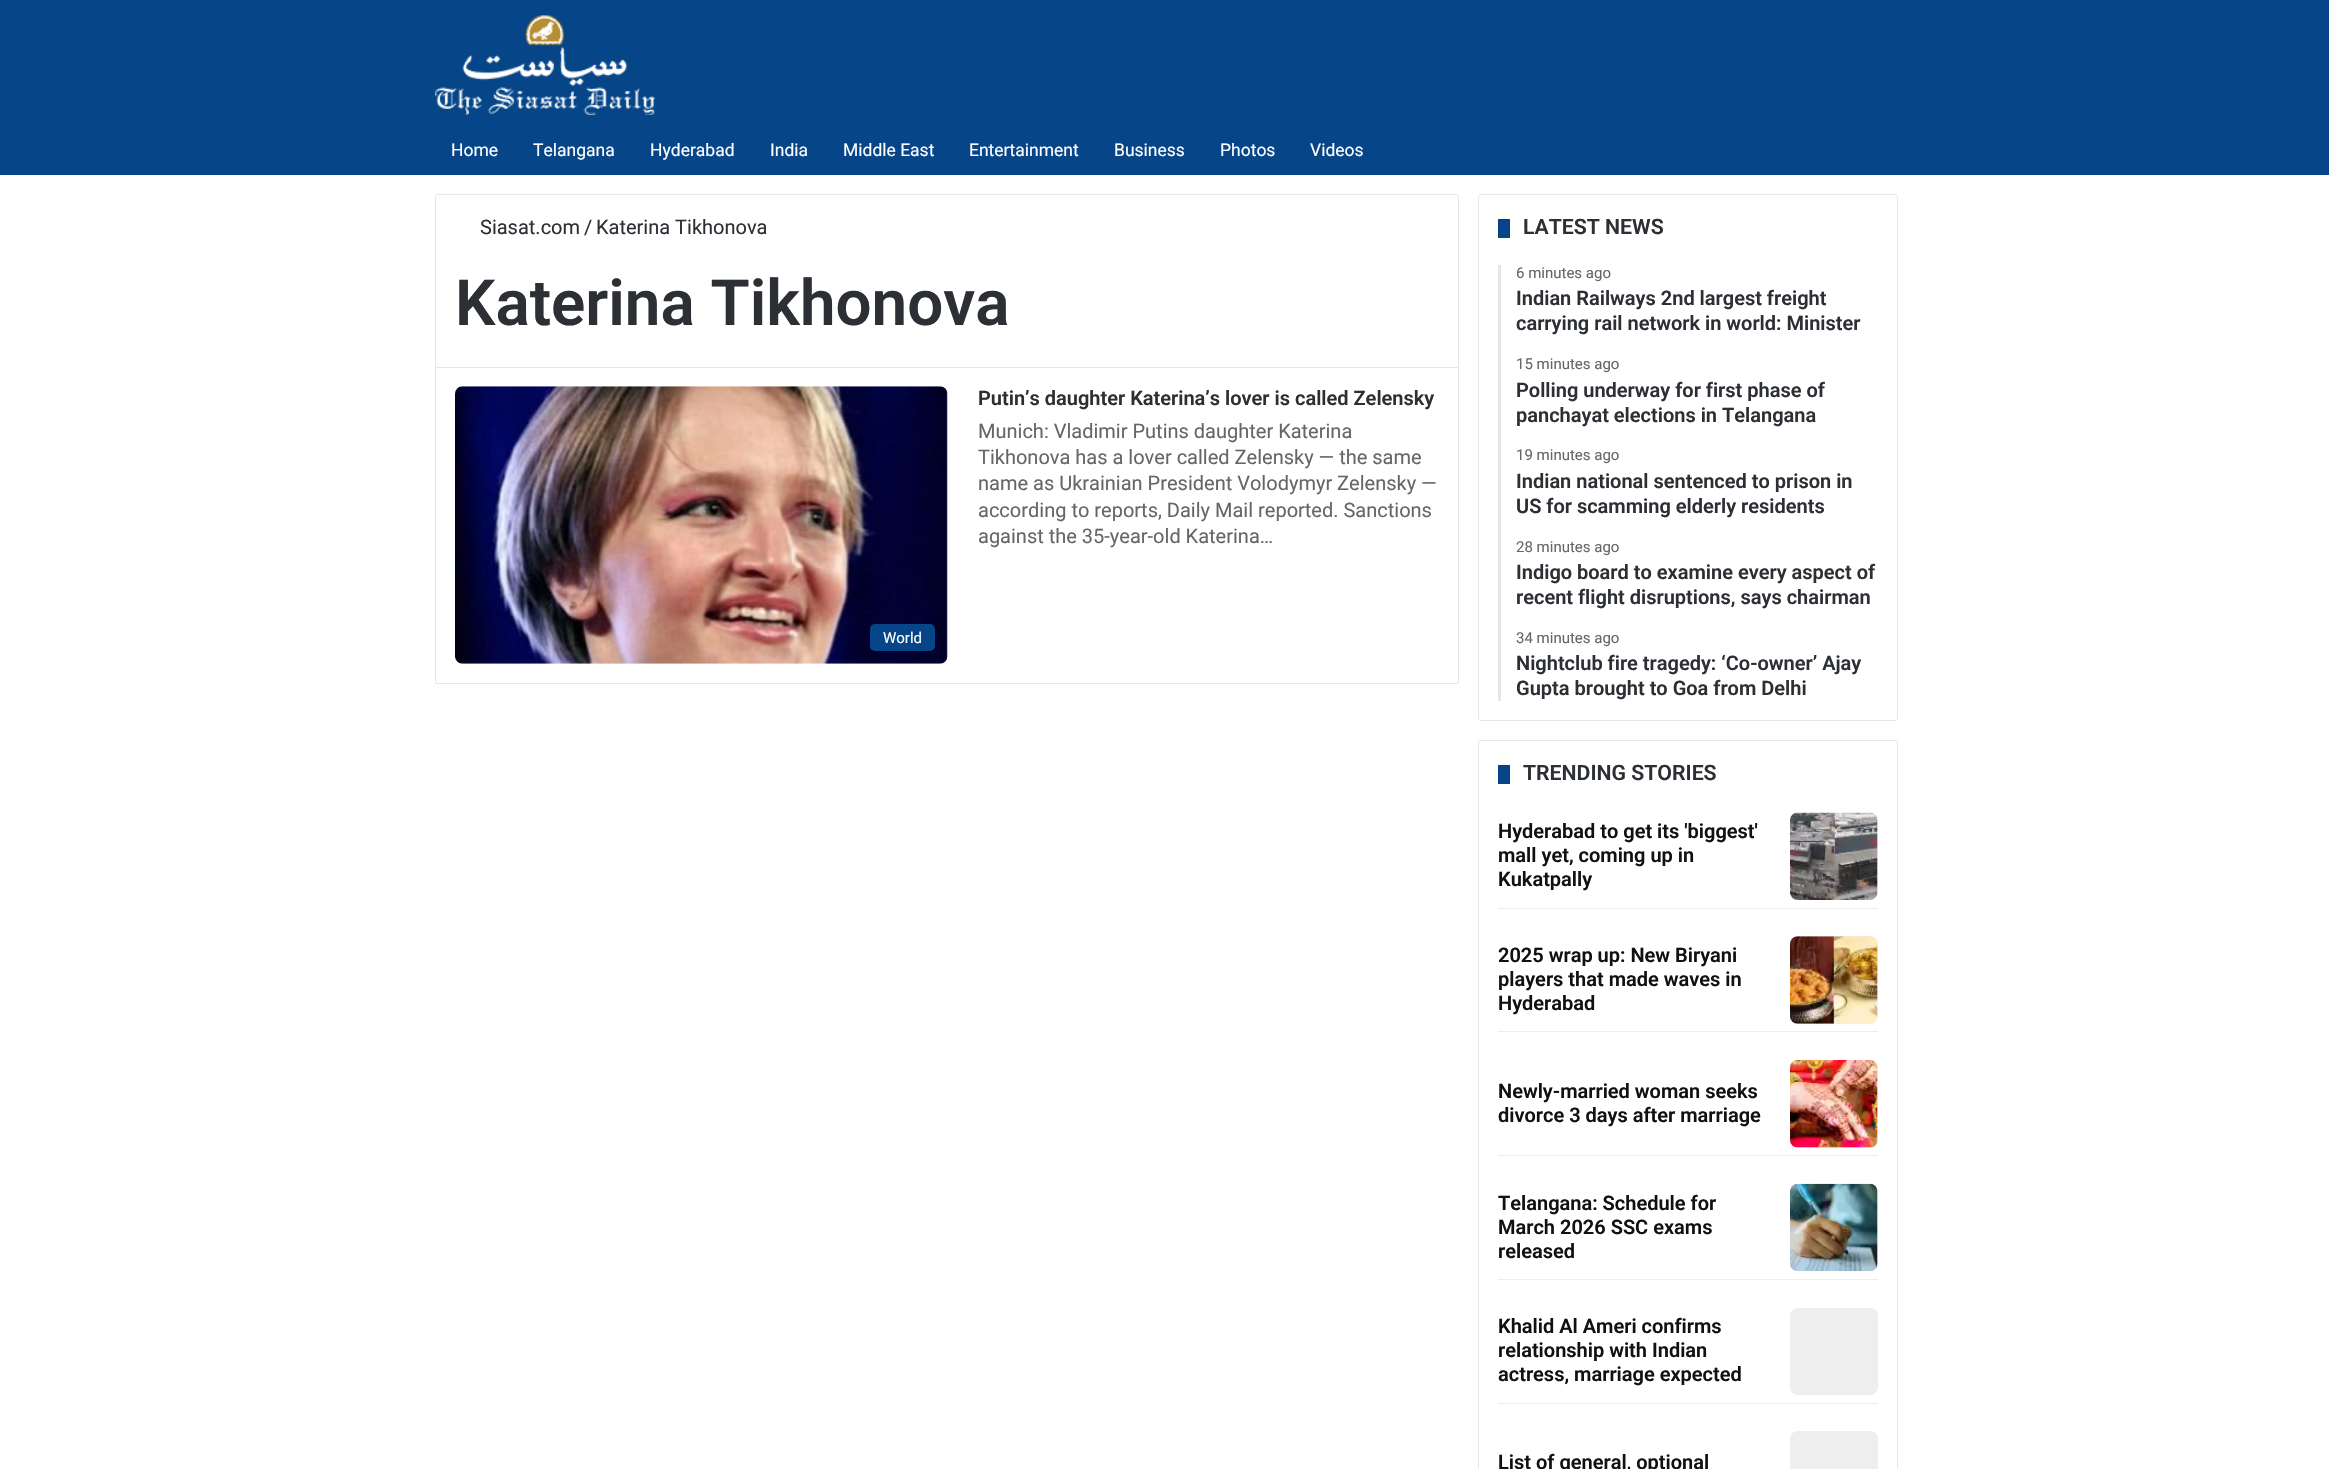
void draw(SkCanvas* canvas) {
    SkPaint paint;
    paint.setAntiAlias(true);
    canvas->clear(0xFFFFFFFF);
    paint.setColor(0xFF064588);
    canvas->drawRect(SkRect::MakeXYWH(0, 0, 2329, 175), paint);
    canvas->drawImageRect(SkImages::DeferredFromEncodedData(SkData::MakeFromFileName("img1.png")), SkRect::MakeXYWH(435, 15, 220, 100), SkSamplingOptions());
    SkFont font1(fontMgr->matchFamilyStyle("Roboto", SkFontStyle::Normal()), 17.5f);
    font1.setSubpixel(true);
    paint.setColor(0xFFFFFFFF);
    canvas->drawString("Home", 451, 156, font1, paint);
    canvas->drawString("Telangana", 533, 156, font1, paint);
    canvas->drawString("Hyderabad", 650, 156, font1, paint);
    canvas->drawString("India", 770, 156, font1, paint);
    canvas->drawString("Middle East", 843, 156, font1, paint);
    canvas->drawString("Entertainment", 969, 156, font1, paint);
    canvas->drawString("Business", 1114, 156, font1, paint);
    canvas->drawString("Photos", 1220, 156, font1, paint);
    canvas->drawString("Videos", 1310, 156, font1, paint);
    paint.setStyle(SkPaint::kStroke_Style);
    paint.setStrokeWidth(1);
    paint.setColor(0xFFE6E6E6);
    canvas->drawPath(SkPathBuilder().moveTo(437.5f, 194.5f).lineTo(1456.5f, 194.5f).cubicTo(1457.5f, 194.5f, 1458.5f, 195.5f, 1458.5f, 196.5f).lineTo(1458.5f, 367.5f).lineTo(435.5f, 367.5f).lineTo(435.5f, 196.5f).cubicTo(435.5f, 195.5f, 436.5f, 194.5f, 437.5f, 194.5f).close().detach(), paint);
    SkFont font2(fontMgr->matchFamilyStyle("Roboto", SkFontStyle::Normal()), 20);
    font2.setSubpixel(true);
    paint.setStyle(SkPaint::kFill_Style);
    paint.setColor(0xFF2C2F34);
    canvas->drawString("Siasat.com", 480, 234, font2, paint);
    canvas->drawString("/", 584, 234, font2, paint);
    canvas->drawString("Katerina Tikhonova", 596, 234, font2, paint);
    SkFont font3(fontMgr->matchFamilyStyle("Roboto", SkFontStyle(600, SkFontStyle::kNormal_Width, SkFontStyle::kUpright_Slant)), 63.75f);
    font3.setSubpixel(true);
    canvas->drawString("Katerina Tikhonova", 455, 325, font3, paint);
    paint.setColor(0xFFE6E6E6);
    canvas->drawRect(SkRect::MakeXYWH(1458, 368, 1, 315), paint);
    canvas->drawRect(SkRect::MakeXYWH(436, 683, 1022, 1), paint);
    canvas->drawRect(SkRect::MakeXYWH(435, 368, 1, 315), paint);
    SkFont font4(fontMgr->matchFamilyStyle("Roboto", SkFontStyle(600, SkFontStyle::kNormal_Width, SkFontStyle::kUpright_Slant)), 20);
    font4.setSubpixel(true);
    paint.setColor(0xFF2C2F34);
    canvas->drawString("Putin’s daughter Katerina’s lover is called Zelensky", 978, 405, font4, paint);
    paint.setColor(0xFF666666);
    canvas->drawString("Munich: Vladimir Putins daughter Katerina", 978, 438, font2, paint);
    canvas->drawString("Tikhonova has a lover called Zelensky — the same", 978, 464, font2, paint);
    canvas->drawString("name as Ukrainian President Volodymyr Zelensky —", 978, 490, font2, paint);
    canvas->drawString("according to reports, Daily Mail reported. Sanctions", 978, 517, font2, paint);
    canvas->drawString("against the 35-year-old Katerina…", 978, 543, font2, paint);
    canvas->drawImageRect(SkImages::DeferredFromEncodedData(SkData::MakeFromFileName("img2.png")), SkRect::MakeXYWH(455, 386, 493, 278), SkSamplingOptions());
    paint.setColor(0xFF064588);
    canvas->drawRoundRect(SkRect::MakeXYWH(870, 624, 65, 27), 5, 5, paint);
    SkFont font5(fontMgr->matchFamilyStyle("Roboto", SkFontStyle::Normal()), 15);
    font5.setSubpixel(true);
    paint.setColor(0xFFFFFFFF);
    canvas->drawString("World", 883, 643, font5, paint);
    paint.setStyle(SkPaint::kStroke_Style);
    paint.setColor(0xFFE6E6E6);
    canvas->drawRoundRect(SkRect::MakeXYWH(1478.5f, 194.5f, 419, 526), 2, 2, paint);
    paint.setStyle(SkPaint::kFill_Style);
    paint.setColor(0xFF064588);
    canvas->drawRect(SkRect::MakeXYWH(1498, 219, 12, 19), paint);
    SkFont font6(fontMgr->matchFamilyStyle("Roboto", SkFontStyle(600, SkFontStyle::kNormal_Width, SkFontStyle::kUpright_Slant)), 21.25f);
    font6.setSubpixel(true);
    paint.setColor(0xFF2C2F34);
    canvas->drawString("LATEST NEWS", 1523, 234, font6, paint);
    paint.setColor(0xFFE6E6E6);
    canvas->drawRect(SkRect::MakeXYWH(1498, 265, 3, 436), paint);
    paint.setColor(0xFF666666);
    canvas->drawString("6 minutes ago", 1516, 278, font5, paint);
    paint.setColor(0xFF2C2F34);
    canvas->drawString("Indian Railways 2nd largest freight", 1516, 305, font4, paint);
    canvas->drawString("carrying rail network in world: Minister", 1516, 330, font4, paint);
    paint.setColor(0xFF666666);
    canvas->drawString("15 minutes ago", 1516, 369, font5, paint);
    paint.setColor(0xFF2C2F34);
    canvas->drawString("Polling underway for first phase of", 1516, 397, font4, paint);
    canvas->drawString("panchayat elections in Telangana", 1516, 422, font4, paint);
    paint.setColor(0xFF666666);
    canvas->drawString("19 minutes ago", 1516, 460, font5, paint);
    paint.setColor(0xFF2C2F34);
    canvas->drawString("Indian national sentenced to prison in", 1516, 488, font4, paint);
    canvas->drawString("US for scamming elderly residents", 1516, 513, font4, paint);
    paint.setColor(0xFF666666);
    canvas->drawString("28 minutes ago", 1516, 552, font5, paint);
    paint.setColor(0xFF2C2F34);
    canvas->drawString("Indigo board to examine every aspect of", 1516, 579, font4, paint);
    canvas->drawString("recent flight disruptions, says chairman", 1516, 604, font4, paint);
    paint.setColor(0xFF666666);
    canvas->drawString("34 minutes ago", 1516, 643, font5, paint);
    paint.setColor(0xFF2C2F34);
    canvas->drawString("Nightclub fire tragedy: ‘Co-owner’ Ajay", 1516, 670, font4, paint);
    canvas->drawString("Gupta brought to Goa from Delhi", 1516, 695, font4, paint);
    paint.setStyle(SkPaint::kStroke_Style);
    paint.setColor(0xFFE6E6E6);
    canvas->drawRoundRect(SkRect::MakeXYWH(1478.5f, 740.5f, 419, 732), 2, 2, paint);
    paint.setStyle(SkPaint::kFill_Style);
    paint.setColor(0xFF064588);
    canvas->drawRect(SkRect::MakeXYWH(1498, 765, 12, 19), paint);
    paint.setColor(0xFF2C2F34);
    canvas->drawString("TRENDING STORIES", 1523, 780, font6, paint);
    paint.setColor(0xFFEEEEEE);
    canvas->drawRect(SkRect::MakeXYWH(1498, 908, 380, 1), paint);
    paint.setColor(0xFF111111);
    canvas->drawString("Hyderabad to get its 'biggest'", 1498, 838, font4, paint);
    canvas->drawString("mall yet, coming up in", 1498, 862, font4, paint);
    canvas->drawString("Kukatpally", 1498, 886, font4, paint);
    paint.setColor(0xFFEEEEEE);
    canvas->drawRoundRect(SkRect::MakeXYWH(1790, 813, 88, 87), 8, 8, paint);
    canvas->drawImageRect(SkImages::DeferredFromEncodedData(SkData::MakeFromFileName("img3.png")), SkRect::MakeXYWH(1790, 812, 88, 88), SkSamplingOptions());
    canvas->drawRect(SkRect::MakeXYWH(1498, 1031, 380, 1), paint);
    paint.setColor(0xFF111111);
    canvas->drawString("2025 wrap up: New Biryani", 1498, 962, font4, paint);
    canvas->drawString("players that made waves in", 1498, 986, font4, paint);
    canvas->drawString("Hyderabad", 1498, 1010, font4, paint);
    paint.setColor(0xFFEEEEEE);
    canvas->drawRoundRect(SkRect::MakeXYWH(1790, 936, 88, 88), 8, 8, paint);
    canvas->drawImageRect(SkImages::DeferredFromEncodedData(SkData::MakeFromFileName("img4.png")), SkRect::MakeXYWH(1790, 936, 88, 88), SkSamplingOptions());
    canvas->drawRect(SkRect::MakeXYWH(1498, 1155, 380, 1), paint);
    paint.setColor(0xFF111111);
    canvas->drawString("Newly-married woman seeks", 1498, 1098, font4, paint);
    canvas->drawString("divorce 3 days after marriage", 1498, 1122, font4, paint);
    paint.setColor(0xFFEEEEEE);
    canvas->drawRoundRect(SkRect::MakeXYWH(1790, 1060, 88, 88), 8, 8, paint);
    canvas->drawImageRect(SkImages::DeferredFromEncodedData(SkData::MakeFromFileName("img5.png")), SkRect::MakeXYWH(1790, 1060, 88, 88), SkSamplingOptions());
    canvas->drawRect(SkRect::MakeXYWH(1498, 1279, 380, 1), paint);
    paint.setColor(0xFF111111);
    canvas->drawString("Telangana: Schedule for", 1498, 1210, font4, paint);
    canvas->drawString("March 2026 SSC exams", 1498, 1234, font4, paint);
    canvas->drawString("released", 1498, 1258, font4, paint);
    paint.setColor(0xFFEEEEEE);
    canvas->drawRoundRect(SkRect::MakeXYWH(1790, 1184, 88, 87), 8, 8, paint);
    canvas->drawImageRect(SkImages::DeferredFromEncodedData(SkData::MakeFromFileName("img6.png")), SkRect::MakeXYWH(1790, 1183, 88, 89), SkSamplingOptions());
    canvas->drawRect(SkRect::MakeXYWH(1498, 1403, 380, 1), paint);
    paint.setColor(0xFF111111);
    canvas->drawString("Khalid Al Ameri confirms", 1498, 1333, font4, paint);
    canvas->drawString("relationship with Indian", 1498, 1357, font4, paint);
    canvas->drawString("actress, marriage expected", 1498, 1381, font4, paint);
    paint.setColor(0xFFEEEEEE);
    canvas->drawRoundRect(SkRect::MakeXYWH(1790, 1308, 88, 87), 8, 8, paint);
    paint.setColor(0xFF111111);
    canvas->drawString("List of general, optional", 1498, 1469, font4, paint);
    paint.setColor(0xFFEEEEEE);
    canvas->drawRoundRect(SkRect::MakeXYWH(1790, 1431, 88, 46), 8, 8, paint);
}
